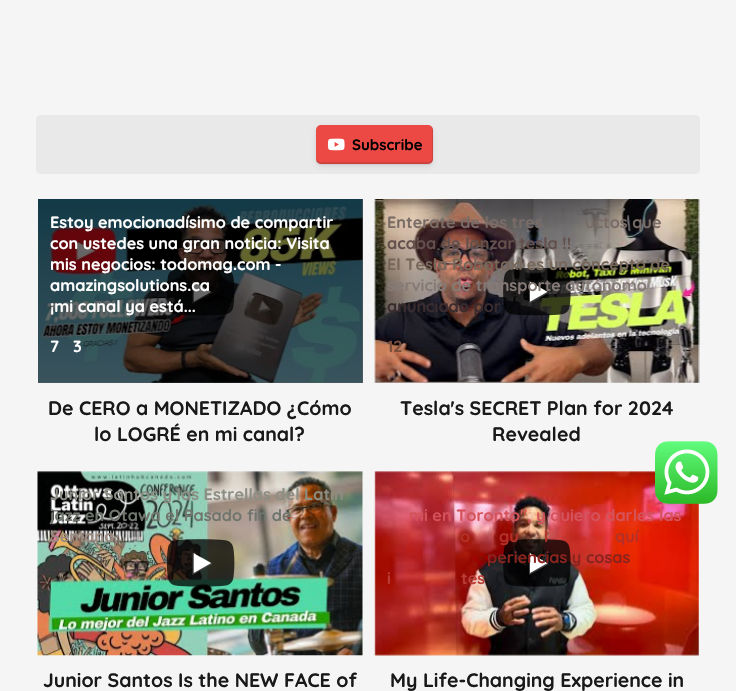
void draw(SkCanvas* canvas) {
    SkPaint paint;
    paint.setAntiAlias(true);
    canvas->clear(0xFFF5F5F5);
    paint.setColor(0xFF626262);
    canvas->drawRect(SkRect::MakeXYWH(38, 199, 325, 184), paint);
    paint.setColor(0xFFE9E9E9);
    canvas->drawRoundRect(SkRect::MakeXYWH(36, 115, 664, 59), 5, 5, paint);
    paint.setColor(0x14000000);
    paint.setMaskFilter(SkMaskFilter::MakeBlur(kNormal_SkBlurStyle, 0.5f));
    canvas->drawRoundRect(SkRect::MakeXYWH(316, 126, 117, 39), 5, 5, paint);
    paint.setMaskFilter(nullptr);
    paint.setColor(0x1F3C4257);
    paint.setMaskFilter(SkMaskFilter::MakeBlur(kNormal_SkBlurStyle, 3));
    canvas->drawRoundRect(SkRect::MakeXYWH(316, 128, 117, 38), 5, 5, paint);
    paint.setMaskFilter(nullptr);
    paint.setColor(0xFFED4944);
    canvas->drawRoundRect(SkRect::MakeXYWH(316, 125, 117, 39), 5, 5, paint);
    paint.setColor(0x1F000000);
    canvas->drawPath(SkPathBuilder().moveTo(316, 158).lineTo(316, 159).cubicTo(316, 162, 318, 164, 321, 164).lineTo(428, 164).cubicTo(431, 164, 433, 162, 433, 159).lineTo(433, 130).cubicTo(433, 129, 432, 127, 431, 126).lineTo(432, 129).lineTo(432, 158).cubicTo(432, 160, 430, 162, 428, 162).lineTo(321, 162).cubicTo(318, 162, 316, 160, 316, 158).close().detach(), paint);
    canvas->drawImageRect(SkImages::DeferredFromEncodedData(SkData::MakeFromFileName("img1.png")), SkRect::MakeXYWH(327, 138, 18, 13), SkSamplingOptions());
    SkFont font1(fontMgr->matchFamilyStyle("Quicksand", SkFontStyle::Bold()), 15);
    font1.setSubpixel(true);
    paint.setColor(0xFF000000);
    canvas->drawString("Subscribe", 352, 150, font1, paint);
    canvas->drawImageRect(SkImages::DeferredFromEncodedData(SkData::MakeFromFileName("img2.png")), SkRect::MakeXYWH(38, 199, 325, 184), SkSamplingOptions());
    SkFont font2(fontMgr->matchFamilyStyle("Quicksand", SkFontStyle::Bold()), 16.25f);
    font2.setSubpixel(true);
    paint.setColor(0xFFFFFFFF);
    canvas->drawString("Estoy emocionadísimo de compartir", 50, 228, font2, paint);
    canvas->drawString("con ustedes una gran noticia: Visita", 50, 249, font2, paint);
    paint.setColor(0xFF666666);
    canvas->drawPath(SkPathBuilder().moveTo(192.5f, 304).lineTo(192.5f, 281).lineTo(212.5f, 292.5f).close().detach(), paint);
    canvas->drawImageRect(SkImages::DeferredFromEncodedData(SkData::MakeFromFileName("img3.png")), SkRect::MakeXYWH(166, 267, 69, 49), SkSamplingOptions());
    paint.setColor(0xFFFFFFFF);
    canvas->drawString("mis negocios: todomag.com -", 50, 270, font2, paint);
    canvas->drawString("amazingsolutions.ca", 50, 291, font2, paint);
    canvas->drawString("¡mi canal ya está...", 50, 312, font2, paint);
    canvas->drawString("7", 50, 352, font2, paint);
    canvas->drawString("3", 73, 352, font2, paint);
    SkFont font3(fontMgr->matchFamilyStyle("Quicksand", SkFontStyle::Bold()), 19.5f);
    font3.setSubpixel(true);
    paint.setColor(0xFF191919);
    canvas->drawString("De CERO a MONETIZADO ¿Cómo", 48, 415, font3, paint);
    canvas->drawString("lo LOGRÉ en mi canal?", 94, 441, font3, paint);
    canvas->drawImageRect(SkImages::DeferredFromEncodedData(SkData::MakeFromFileName("img4.png")), SkRect::MakeXYWH(374, 199, 326, 184), SkSamplingOptions());
    paint.setColor(0xFF796C66);
    canvas->drawString("Enterate de los tres", 387, 228, font2, paint);
    canvas->drawString("uctos que", 585, 228, font2, paint);
    paint.setColor(0xFF63504D);
    canvas->drawString("acaba de lanzar tesla !!", 387, 249, font2, paint);
    paint.setColor(0xFFFFFFFF);
    canvas->drawPath(SkPathBuilder().moveTo(529, 304).lineTo(529, 281).lineTo(549, 292.5f).close().detach(), paint);
    canvas->drawImageRect(SkImages::DeferredFromEncodedData(SkData::MakeFromFileName("img5.png")), SkRect::MakeXYWH(503, 267, 68, 49), SkSamplingOptions());
    paint.setColor(0xFF776759);
    canvas->drawString("El Tesla Robotaxi es un concepto de", 387, 270, font2, paint);
    paint.setColor(0xFF867A76);
    canvas->drawString("servicio de transporte autónomo", 387, 291, font2, paint);
    paint.setColor(0xFF3A2C2E);
    canvas->drawString("anunciado por", 387, 312, font2, paint);
    paint.setColor(0xFF794E3C);
    canvas->drawString("12", 387, 352, font2, paint);
    paint.setColor(0xFF191919);
    canvas->drawString("Tesla's SECRET Plan for 2024", 400, 415, font3, paint);
    canvas->drawString("Revealed", 492, 441, font3, paint);
    canvas->drawImageRect(SkImages::DeferredFromEncodedData(SkData::MakeFromFileName("img6.png")), SkRect::MakeXYWH(37, 471, 326, 185), SkSamplingOptions());
    paint.setColor(0xFF8C8E83);
    canvas->drawString("Junior Santos y las Estrellas del Latin", 50, 500, font2, paint);
    paint.setColor(0xFF70766E);
    canvas->drawString("jazz en Otawa el Pasado fin de", 50, 521, font2, paint);
    paint.setColor(0xFF9A8A7F);
    canvas->drawString("Semana.", 50, 542, font2, paint);
    paint.setColor(0xFFFFFFFF);
    canvas->drawPath(SkPathBuilder().moveTo(192.5f, 575).lineTo(192.5f, 552.5f).lineTo(212.5f, 564).close().detach(), paint);
    canvas->drawImageRect(SkImages::DeferredFromEncodedData(SkData::MakeFromFileName("img7.png")), SkRect::MakeXYWH(166, 539, 69, 48), SkSamplingOptions());
    paint.setColor(0xFF191919);
    canvas->drawString("Junior Santos Is the NEW FACE of", 43, 687, font3, paint);
    canvas->drawImageRect(SkImages::DeferredFromEncodedData(SkData::MakeFromFileName("img8.png")), SkRect::MakeXYWH(374, 471, 325, 185), SkSamplingOptions());
    paint.setColor(0xFFD4535B);
    canvas->drawString("mi en Toronto\", y quiero darles las", 409, 521, font2, paint);
    paint.setColor(0xFFB33028);
    canvas->drawString("o", 460, 542, font2, paint);
    paint.setColor(0xFFFFFFFF);
    canvas->drawPath(SkPathBuilder().moveTo(529, 575).lineTo(529, 552.5f).lineTo(549, 564).close().detach(), paint);
    canvas->drawImageRect(SkImages::DeferredFromEncodedData(SkData::MakeFromFileName("img9.png")), SkRect::MakeXYWH(503, 539, 68, 48), SkSamplingOptions());
    paint.setColor(0xFFB33028);
    canvas->drawString("gu", 499, 542, font2, paint);
    canvas->drawString("l", 544, 542, font2, paint);
    canvas->drawString("quí", 615, 542, font2, paint);
    paint.setColor(0xFF8A231E);
    canvas->drawString("periencias y cosas", 487, 563, font2, paint);
    paint.setColor(0xFFBA3D36);
    canvas->drawString("i", 387, 584, font2, paint);
    canvas->drawString("tes", 461, 584, font2, paint);
    paint.setColor(0xFF191919);
    canvas->drawString("My Life-Changing Experience in", 390, 687, font3, paint);
    canvas->drawImageRect(SkImages::DeferredFromEncodedData(SkData::MakeFromFileName("img10.png")), SkRect::MakeXYWH(655, 441, 63, 63), SkSamplingOptions());
}
